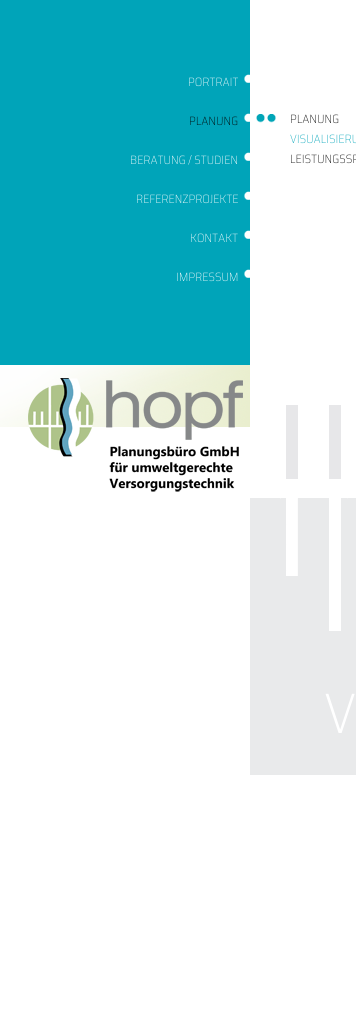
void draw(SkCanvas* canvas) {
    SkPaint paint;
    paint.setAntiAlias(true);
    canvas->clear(0xFFFFFFFF);
    paint.setColor(0xFF00A4B9);
    canvas->drawRect(SkRect::MakeXYWH(0, 0, 250, 365), paint);
    canvas->drawImageRect(SkImages::DeferredFromEncodedData(SkData::MakeFromFileName("img1.png")), SkRect::MakeXYWH(189, 77, 49, 10), SkSamplingOptions());
    canvas->drawImageRect(SkImages::DeferredFromEncodedData(SkData::MakeFromFileName("img2.png")), SkRect::MakeXYWH(244, 74, 6, 9), SkSamplingOptions());
    canvas->drawImageRect(SkImages::DeferredFromEncodedData(SkData::MakeFromFileName("img3.png")), SkRect::MakeXYWH(190, 116, 48, 10), SkSamplingOptions());
    canvas->drawImageRect(SkImages::DeferredFromEncodedData(SkData::MakeFromFileName("img2.png")), SkRect::MakeXYWH(244, 113, 6, 9), SkSamplingOptions());
    canvas->drawImageRect(SkImages::DeferredFromEncodedData(SkData::MakeFromFileName("img13.png")), SkRect::MakeXYWH(250, 0, 106, 631), SkSamplingOptions());
    canvas->drawImageRect(SkImages::DeferredFromEncodedData(SkData::MakeFromFileName("img4.png")), SkRect::MakeXYWH(256, 114, 20, 9), SkSamplingOptions());
    canvas->drawImageRect(SkImages::DeferredFromEncodedData(SkData::MakeFromFileName("img5.png")), SkRect::MakeXYWH(291, 114, 48, 10), SkSamplingOptions());
    canvas->drawImageRect(SkImages::DeferredFromEncodedData(SkData::MakeFromFileName("img6.png")), SkRect::MakeXYWH(290, 134, 66, 10), SkSamplingOptions());
    canvas->drawImageRect(SkImages::DeferredFromEncodedData(SkData::MakeFromFileName("img7.png")), SkRect::MakeXYWH(291, 154, 65, 10), SkSamplingOptions());
    canvas->drawImageRect(SkImages::DeferredFromEncodedData(SkData::MakeFromFileName("img8.png")), SkRect::MakeXYWH(131, 155, 106, 10), SkSamplingOptions());
    canvas->drawImageRect(SkImages::DeferredFromEncodedData(SkData::MakeFromFileName("img2.png")), SkRect::MakeXYWH(244, 152, 6, 9), SkSamplingOptions());
    canvas->drawImageRect(SkImages::DeferredFromEncodedData(SkData::MakeFromFileName("img9.png")), SkRect::MakeXYWH(137, 194, 101, 10), SkSamplingOptions());
    canvas->drawImageRect(SkImages::DeferredFromEncodedData(SkData::MakeFromFileName("img2.png")), SkRect::MakeXYWH(244, 191, 6, 9), SkSamplingOptions());
    canvas->drawImageRect(SkImages::DeferredFromEncodedData(SkData::MakeFromFileName("img10.png")), SkRect::MakeXYWH(191, 233, 47, 10), SkSamplingOptions());
    canvas->drawImageRect(SkImages::DeferredFromEncodedData(SkData::MakeFromFileName("img2.png")), SkRect::MakeXYWH(244, 230, 6, 9), SkSamplingOptions());
    canvas->drawImageRect(SkImages::DeferredFromEncodedData(SkData::MakeFromFileName("img11.png")), SkRect::MakeXYWH(177, 272, 61, 10), SkSamplingOptions());
    canvas->drawImageRect(SkImages::DeferredFromEncodedData(SkData::MakeFromFileName("img2.png")), SkRect::MakeXYWH(244, 269, 6, 9), SkSamplingOptions());
    canvas->drawImageRect(SkImages::DeferredFromEncodedData(SkData::MakeFromFileName("img12.png")), SkRect::MakeXYWH(0, 365, 250, 127), SkSamplingOptions());
    paint.setColor(0xFFE9EAEB);
    canvas->drawRect(SkRect::MakeXYWH(250, 631, 106, 144), paint);
    canvas->drawImageRect(SkImages::DeferredFromEncodedData(SkData::MakeFromFileName("img14.png")), SkRect::MakeXYWH(325, 693, 30, 40), SkSamplingOptions());
}
